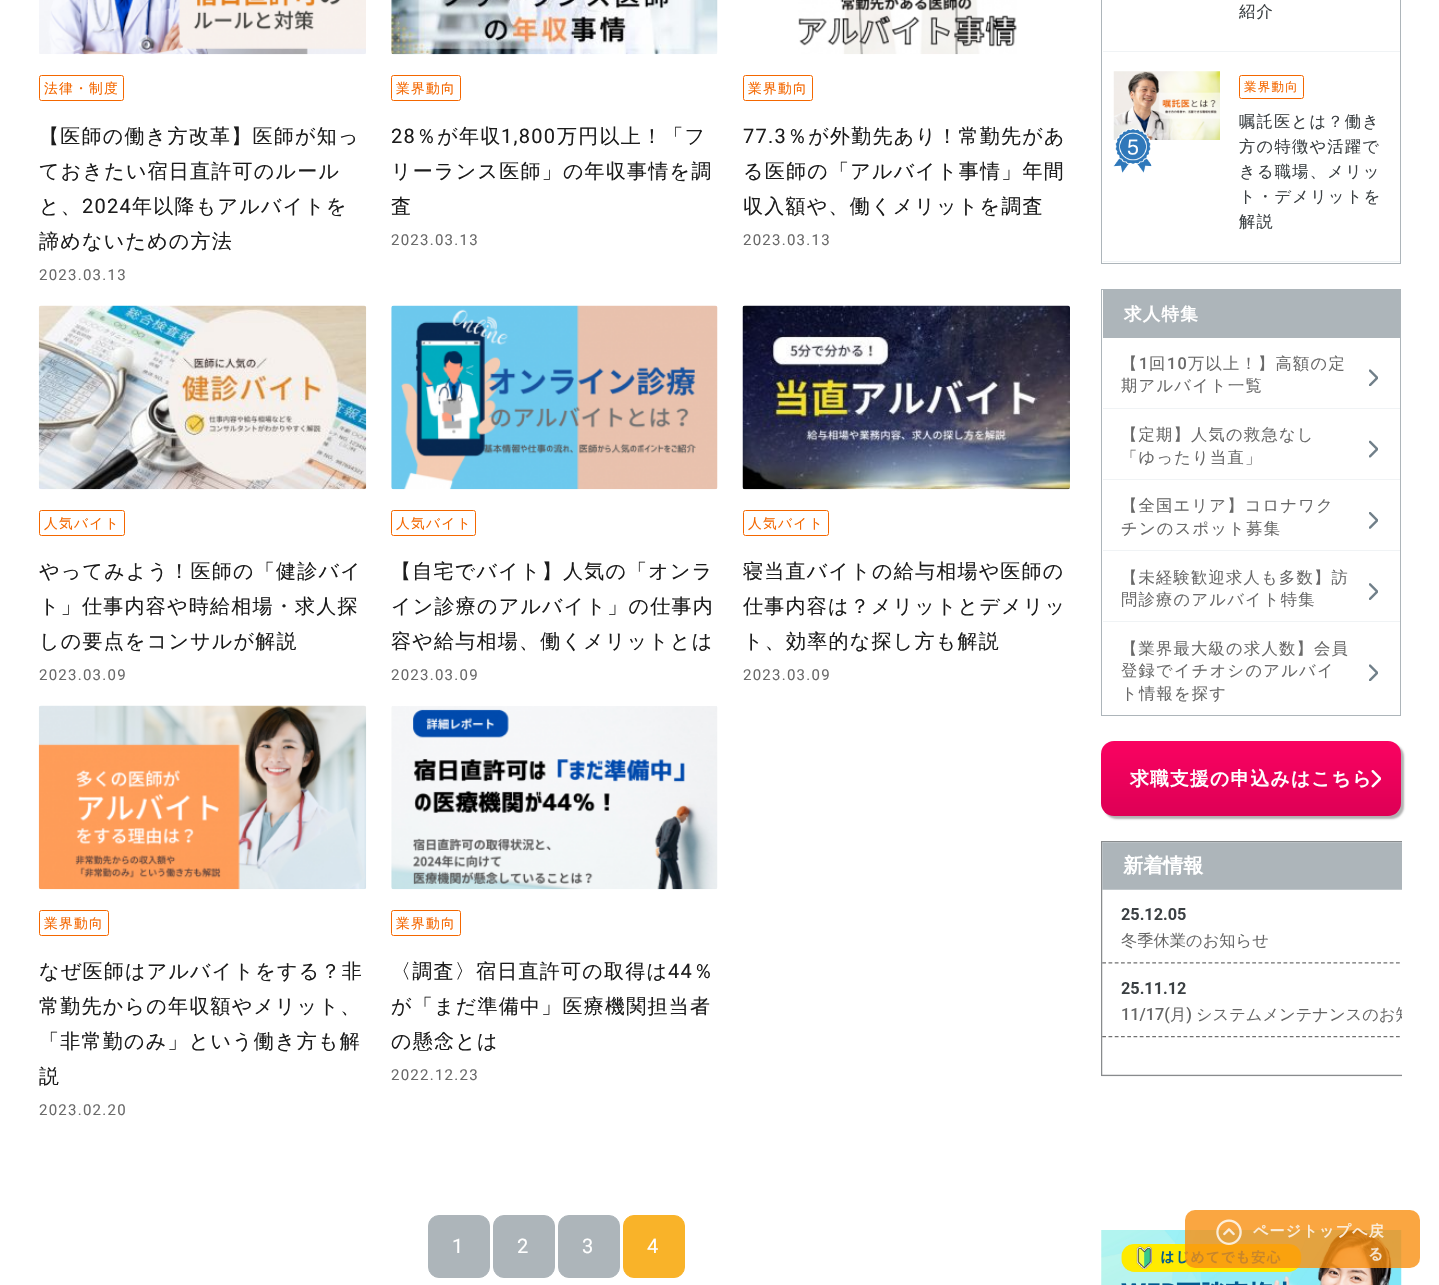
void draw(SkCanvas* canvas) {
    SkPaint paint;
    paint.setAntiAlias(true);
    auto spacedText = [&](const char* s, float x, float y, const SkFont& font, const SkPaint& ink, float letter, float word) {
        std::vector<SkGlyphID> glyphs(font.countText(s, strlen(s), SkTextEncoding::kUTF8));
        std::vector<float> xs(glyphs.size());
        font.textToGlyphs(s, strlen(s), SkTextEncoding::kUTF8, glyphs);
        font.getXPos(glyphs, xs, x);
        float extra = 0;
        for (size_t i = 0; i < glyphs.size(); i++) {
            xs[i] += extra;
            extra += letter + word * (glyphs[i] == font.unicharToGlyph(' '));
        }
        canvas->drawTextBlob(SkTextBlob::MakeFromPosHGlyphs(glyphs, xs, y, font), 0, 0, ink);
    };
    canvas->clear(0xFFFFFFFF);
    canvas->drawImageRect(SkImages::DeferredFromEncodedData(SkData::MakeFromFileName("img1.png")), SkRect::MakeXYWH(39, 0, 327, 55), SkSamplingOptions());
    paint.setStyle(SkPaint::kStroke_Style);
    paint.setStrokeWidth(1);
    paint.setColor(0xFFF46700);
    canvas->drawRoundRect(SkRect::MakeXYWH(39.5f, 75.5f, 84, 25), 2, 2, paint);
    SkFont font1(fontMgr->matchFamilyStyle("WenQuanYi Zen Hei", SkFontStyle(500, SkFontStyle::kNormal_Width, SkFontStyle::kUpright_Slant)), 13.75f);
    font1.setSubpixel(true);
    paint.setStyle(SkPaint::kFill_Style);
    spacedText("法律・制度", 44, 93, font1, paint, 1.25f, 0);
    SkFont font2(fontMgr->matchFamilyStyle("WenQuanYi Zen Hei", SkFontStyle(500, SkFontStyle::kNormal_Width, SkFontStyle::kUpright_Slant)), 20);
    font2.setSubpixel(true);
    paint.setColor(0xFF1C1C1C);
    spacedText("【医師の働き方改革】医師が知っ", 39, 143, font2, paint, 1.25f, 0);
    spacedText("ておきたい宿日直許可のルール", 39, 178, font2, paint, 1.25f, 0);
    spacedText("と、", 39, 213, font2, paint, 1.25f, 0);
    SkFont font3(fontMgr->matchFamilyStyle("Roboto", SkFontStyle::Normal()), 20);
    font3.setSubpixel(true);
    spacedText("2024", 82, 213, font3, paint, 1.25f, 0);
    spacedText("年以降もアルバイトを", 132, 213, font2, paint, 1.25f, 0);
    spacedText("諦めないための方法", 39, 248, font2, paint, 1.25f, 0);
    SkFont font4(fontMgr->matchFamilyStyle("Roboto", SkFontStyle::Normal()), 15);
    font4.setSubpixel(true);
    paint.setColor(0xFF6A6A6A);
    spacedText("2023.03.13", 39, 280, font4, paint, 1.25f, 0);
    canvas->drawImageRect(SkImages::DeferredFromEncodedData(SkData::MakeFromFileName("img2.png")), SkRect::MakeXYWH(391, 0, 327, 55), SkSamplingOptions());
    paint.setStyle(SkPaint::kStroke_Style);
    paint.setColor(0xFFF46700);
    canvas->drawRoundRect(SkRect::MakeXYWH(391.5f, 75.5f, 69, 25), 2, 2, paint);
    paint.setStyle(SkPaint::kFill_Style);
    spacedText("業界動向", 396, 93, font1, paint, 1.25f, 0);
    paint.setColor(0xFF1C1C1C);
    spacedText("28", 391, 143, font3, paint, 1.25f, 0);
    spacedText("％が年収", 416, 143, font2, paint, 1.25f, 0);
    spacedText("1,800", 501, 143, font3, paint, 1.25f, 0);
    spacedText("万円以上！「フ", 557, 143, font2, paint, 1.25f, 0);
    spacedText("リーランス医師」の年収事情を調", 391, 178, font2, paint, 1.25f, 0);
    spacedText("査", 391, 213, font2, paint, 1.25f, 0);
    paint.setColor(0xFF6A6A6A);
    spacedText("2023.03.13", 391, 245, font4, paint, 1.25f, 0);
    canvas->drawImageRect(SkImages::DeferredFromEncodedData(SkData::MakeFromFileName("img3.png")), SkRect::MakeXYWH(798, 0, 219, 55), SkSamplingOptions());
    paint.setStyle(SkPaint::kStroke_Style);
    paint.setColor(0xFFF46700);
    canvas->drawRoundRect(SkRect::MakeXYWH(743.5f, 75.5f, 69, 25), 2, 2, paint);
    paint.setStyle(SkPaint::kFill_Style);
    spacedText("業界動向", 748, 93, font1, paint, 1.25f, 0);
    paint.setColor(0xFF1C1C1C);
    spacedText("77.3", 743, 143, font3, paint, 1.25f, 0);
    spacedText("％が外勤先あり！常勤先があ", 787, 143, font2, paint, 1.25f, 0);
    spacedText("る医師の「アルバイト事情」年間", 743, 178, font2, paint, 1.25f, 0);
    spacedText("収入額や、働くメリットを調査", 743, 213, font2, paint, 1.25f, 0);
    paint.setColor(0xFF6A6A6A);
    spacedText("2023.03.13", 743, 245, font4, paint, 1.25f, 0);
    canvas->drawImageRect(SkImages::DeferredFromEncodedData(SkData::MakeFromFileName("img4.png")), SkRect::MakeXYWH(38, 305, 329, 185), SkSamplingOptions());
    paint.setStyle(SkPaint::kStroke_Style);
    paint.setColor(0xFFF46700);
    canvas->drawRoundRect(SkRect::MakeXYWH(39.5f, 510.5f, 85, 25), 2, 2, paint);
    paint.setStyle(SkPaint::kFill_Style);
    spacedText("人気バイト", 44, 528, font1, paint, 1.25f, 0);
    paint.setColor(0xFF1C1C1C);
    spacedText("やってみよう！医師の「健診バイ", 39, 578, font2, paint, 1.25f, 0);
    spacedText("ト」仕事内容や時給相場・求人探", 39, 613, font2, paint, 1.25f, 0);
    spacedText("しの要点をコンサルが解説", 39, 648, font2, paint, 1.25f, 0);
    paint.setColor(0xFF6A6A6A);
    spacedText("2023.03.09", 39, 680, font4, paint, 1.25f, 0);
    canvas->drawImageRect(SkImages::DeferredFromEncodedData(SkData::MakeFromFileName("img5.png")), SkRect::MakeXYWH(391, 305, 327, 185), SkSamplingOptions());
    paint.setStyle(SkPaint::kStroke_Style);
    paint.setColor(0xFFF46700);
    canvas->drawRoundRect(SkRect::MakeXYWH(391.5f, 510.5f, 84, 25), 2, 2, paint);
    paint.setStyle(SkPaint::kFill_Style);
    spacedText("人気バイト", 396, 528, font1, paint, 1.25f, 0);
    paint.setColor(0xFF1C1C1C);
    spacedText("【自宅でバイト】人気の「オンラ", 391, 578, font2, paint, 1.25f, 0);
    spacedText("イン診療のアルバイト」の仕事内", 391, 613, font2, paint, 1.25f, 0);
    spacedText("容や給与相場、働くメリットとは", 391, 648, font2, paint, 1.25f, 0);
    paint.setColor(0xFF6A6A6A);
    spacedText("2023.03.09", 391, 680, font4, paint, 1.25f, 0);
    canvas->drawImageRect(SkImages::DeferredFromEncodedData(SkData::MakeFromFileName("img6.png")), SkRect::MakeXYWH(742, 305, 328, 185), SkSamplingOptions());
    paint.setStyle(SkPaint::kStroke_Style);
    paint.setColor(0xFFF46700);
    canvas->drawRoundRect(SkRect::MakeXYWH(743.5f, 510.5f, 85, 25), 2, 2, paint);
    paint.setStyle(SkPaint::kFill_Style);
    spacedText("人気バイト", 748, 528, font1, paint, 1.25f, 0);
    paint.setColor(0xFF1C1C1C);
    spacedText("寝当直バイトの給与相場や医師の", 743, 578, font2, paint, 1.25f, 0);
    spacedText("仕事内容は？メリットとデメリッ", 743, 613, font2, paint, 1.25f, 0);
    spacedText("ト、効率的な探し方も解説", 743, 648, font2, paint, 1.25f, 0);
    paint.setColor(0xFF6A6A6A);
    spacedText("2023.03.09", 743, 680, font4, paint, 1.25f, 0);
    canvas->drawImageRect(SkImages::DeferredFromEncodedData(SkData::MakeFromFileName("img7.png")), SkRect::MakeXYWH(38, 705, 329, 185), SkSamplingOptions());
    paint.setStyle(SkPaint::kStroke_Style);
    paint.setColor(0xFFF46700);
    canvas->drawRoundRect(SkRect::MakeXYWH(39.5f, 910.5f, 69, 25), 2, 2, paint);
    paint.setStyle(SkPaint::kFill_Style);
    spacedText("業界動向", 44, 928, font1, paint, 1.25f, 0);
    paint.setColor(0xFF1C1C1C);
    spacedText("なぜ医師はアルバイトをする？非", 39, 978, font2, paint, 1.25f, 0);
    spacedText("常勤先からの年収額やメリット、", 39, 1013, font2, paint, 1.25f, 0);
    spacedText("「非常勤のみ」という働き方も解", 39, 1048, font2, paint, 1.25f, 0);
    spacedText("説", 39, 1083, font2, paint, 1.25f, 0);
    paint.setColor(0xFF6A6A6A);
    spacedText("2023.02.20", 39, 1115, font4, paint, 1.25f, 0);
    canvas->drawImageRect(SkImages::DeferredFromEncodedData(SkData::MakeFromFileName("img8.png")), SkRect::MakeXYWH(391, 706, 327, 184), SkSamplingOptions());
    paint.setStyle(SkPaint::kStroke_Style);
    paint.setColor(0xFFF46700);
    canvas->drawRoundRect(SkRect::MakeXYWH(391.5f, 910.5f, 69, 25), 2, 2, paint);
    paint.setStyle(SkPaint::kFill_Style);
    spacedText("業界動向", 396, 928, font1, paint, 1.25f, 0);
    paint.setColor(0xFF1C1C1C);
    spacedText("〈調査〉宿日直許可の取得は", 391, 978, font2, paint, 1.25f, 0);
    spacedText("44", 668, 978, font3, paint, 1.25f, 0);
    spacedText("％", 693, 978, font2, paint, 1.25f, 0);
    spacedText("が「まだ準備中」医療機関担当者", 391, 1013, font2, paint, 1.25f, 0);
    spacedText("の懸念とは", 391, 1048, font2, paint, 1.25f, 0);
    paint.setColor(0xFF6A6A6A);
    spacedText("2022.12.23", 391, 1080, font4, paint, 1.25f, 0);
    paint.setColor(0xFFADB5BA);
    canvas->drawRoundRect(SkRect::MakeXYWH(428.5f, 1215.5f, 61, 62), 10.5f, 10.5f, paint);
    paint.setStyle(SkPaint::kStroke_Style);
    canvas->drawRoundRect(SkRect::MakeXYWH(428.5f, 1215.5f, 61, 62), 10.5f, 10.5f, paint);
    paint.setStyle(SkPaint::kFill_Style);
    paint.setColor(0xFFFFFFFF);
    spacedText("1", 452, 1253, font3, paint, 1.25f, 0);
    paint.setColor(0xFFADB5BA);
    canvas->drawRoundRect(SkRect::MakeXYWH(493.5f, 1215.5f, 61, 62), 10.5f, 10.5f, paint);
    paint.setStyle(SkPaint::kStroke_Style);
    canvas->drawRoundRect(SkRect::MakeXYWH(493.5f, 1215.5f, 61, 62), 10.5f, 10.5f, paint);
    paint.setStyle(SkPaint::kFill_Style);
    paint.setColor(0xFFFFFFFF);
    spacedText("2", 517, 1253, font3, paint, 1.25f, 0);
    paint.setColor(0xFFADB5BA);
    canvas->drawRoundRect(SkRect::MakeXYWH(558.5f, 1215.5f, 61, 62), 10.5f, 10.5f, paint);
    paint.setStyle(SkPaint::kStroke_Style);
    canvas->drawRoundRect(SkRect::MakeXYWH(558.5f, 1215.5f, 61, 62), 10.5f, 10.5f, paint);
    paint.setStyle(SkPaint::kFill_Style);
    paint.setColor(0xFFFFFFFF);
    spacedText("3", 582, 1253, font3, paint, 1.25f, 0);
    paint.setColor(0xFFF9B329);
    canvas->drawRoundRect(SkRect::MakeXYWH(623.5f, 1215.5f, 61, 62), 10.5f, 10.5f, paint);
    paint.setStyle(SkPaint::kStroke_Style);
    canvas->drawRoundRect(SkRect::MakeXYWH(623.5f, 1215.5f, 61, 62), 10.5f, 10.5f, paint);
    paint.setStyle(SkPaint::kFill_Style);
    paint.setColor(0xFFFFFFFF);
    spacedText("4", 647, 1253, font3, paint, 1.25f, 0);
    paint.setStyle(SkPaint::kStroke_Style);
    paint.setColor(0xFFADB5BA);
    canvas->drawRect(SkRect::MakeXYWH(1101.5f, -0.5f, 299, 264), paint);
    paint.setStyle(SkPaint::kFill_Style);
    paint.setColor(0xFFF0F3F5);
    canvas->drawRect(SkRect::MakeXYWH(1103, 51, 297, 1), paint);
    SkFont font5(fontMgr->matchFamilyStyle("WenQuanYi Zen Hei", SkFontStyle(500, SkFontStyle::kNormal_Width, SkFontStyle::kUpright_Slant)), 16.25f);
    font5.setSubpixel(true);
    paint.setColor(0xFF3B4043);
    spacedText("紹介", 1239, 17, font5, paint, 1.25f, 0);
    paint.setColor(0xFFF0F3F5);
    canvas->drawRect(SkRect::MakeXYWH(1103, 261, 297, 1), paint);
    canvas->drawImageRect(SkImages::DeferredFromEncodedData(SkData::MakeFromFileName("img10.png")), SkRect::MakeXYWH(1113, 71, 107, 69), SkSamplingOptions());
    canvas->drawImageRect(SkImages::DeferredFromEncodedData(SkData::MakeFromFileName("img9.png")), SkRect::MakeXYWH(1113, 128, 39, 45), SkSamplingOptions());
    paint.setStyle(SkPaint::kStroke_Style);
    paint.setColor(0xFFF46700);
    canvas->drawRoundRect(SkRect::MakeXYWH(1239.5f, 75.5f, 64, 23), 2, 2, paint);
    SkFont font6(fontMgr->matchFamilyStyle("WenQuanYi Zen Hei", SkFontStyle(500, SkFontStyle::kNormal_Width, SkFontStyle::kUpright_Slant)), 12.5f);
    font6.setSubpixel(true);
    paint.setStyle(SkPaint::kFill_Style);
    spacedText("業界動向", 1244, 91, font6, paint, 1.25f, 0);
    paint.setColor(0xFF3B4043);
    spacedText("嘱託医とは？働き", 1239, 127, font5, paint, 1.25f, 0);
    spacedText("方の特徴や活躍で", 1239, 152, font5, paint, 1.25f, 0);
    spacedText("きる職場、メリッ", 1239, 177, font5, paint, 1.25f, 0);
    spacedText("ト・デメリットを", 1239, 202, font5, paint, 1.25f, 0);
    spacedText("解説", 1239, 227, font5, paint, 1.25f, 0);
    paint.setStyle(SkPaint::kStroke_Style);
    paint.setColor(0xFFADB5BA);
    canvas->drawRect(SkRect::MakeXYWH(1101.5f, 289.5f, 299, 426), paint);
    paint.setStyle(SkPaint::kFill_Style);
    canvas->drawRect(SkRect::MakeXYWH(1103, 290, 297, 48), paint);
    SkFont font7(fontMgr->matchFamilyStyle("WenQuanYi Zen Hei", SkFontStyle::Bold()), 17.5f);
    font7.setSubpixel(true);
    paint.setColor(0xFFFFFFFF);
    spacedText("求人特集", 1124, 320, font7, paint, 1.25f, 0);
    paint.setColor(0xFFF0F3F5);
    canvas->drawRect(SkRect::MakeXYWH(1103, 408, 297, 1), paint);
    paint.setColor(0xFF6A6A6A);
    spacedText("【", 1121, 369, font5, paint, 1.25f, 0);
    SkFont font8(fontMgr->matchFamilyStyle("Roboto", SkFontStyle(500, SkFontStyle::kNormal_Width, SkFontStyle::kUpright_Slant)), 16.25f);
    font8.setSubpixel(true);
    spacedText("1", 1139, 369, font8, paint, 1.25f, 0);
    spacedText("回", 1149, 369, font5, paint, 1.25f, 0);
    spacedText("10", 1167, 369, font8, paint, 1.25f, 0);
    spacedText("万以上！】高額の定", 1188, 369, font5, paint, 1.25f, 0);
    spacedText("期アルバイト一覧", 1121, 391, font5, paint, 1.25f, 0);
    canvas->drawImageRect(SkImages::DeferredFromEncodedData(SkData::MakeFromFileName("img11.png")), SkRect::MakeXYWH(1369, 369, 9, 17), SkSamplingOptions());
    paint.setColor(0xFFF0F3F5);
    canvas->drawRect(SkRect::MakeXYWH(1103, 479, 297, 1), paint);
    paint.setColor(0xFF6A6A6A);
    spacedText("【定期】人気の救急なし", 1121, 440, font5, paint, 1.25f, 0);
    spacedText("「ゆったり当直」", 1121, 463, font5, paint, 1.25f, 0);
    canvas->drawImageRect(SkImages::DeferredFromEncodedData(SkData::MakeFromFileName("img12.png")), SkRect::MakeXYWH(1369, 440, 9, 18), SkSamplingOptions());
    paint.setColor(0xFFF0F3F5);
    canvas->drawRect(SkRect::MakeXYWH(1103, 550, 297, 1), paint);
    paint.setColor(0xFF6A6A6A);
    spacedText("【全国エリア】コロナワク", 1121, 511, font5, paint, 1.25f, 0);
    spacedText("チンのスポット募集", 1121, 534, font5, paint, 1.25f, 0);
    canvas->drawImageRect(SkImages::DeferredFromEncodedData(SkData::MakeFromFileName("img13.png")), SkRect::MakeXYWH(1369, 512, 9, 17), SkSamplingOptions());
    paint.setColor(0xFFF0F3F5);
    canvas->drawRect(SkRect::MakeXYWH(1103, 621, 297, 1), paint);
    paint.setColor(0xFF6A6A6A);
    spacedText("【未経験歓迎求人も多数】訪", 1121, 583, font5, paint, 1.25f, 0);
    spacedText("問診療のアルバイト特集", 1121, 605, font5, paint, 1.25f, 0);
    canvas->drawImageRect(SkImages::DeferredFromEncodedData(SkData::MakeFromFileName("img14.png")), SkRect::MakeXYWH(1369, 583, 9, 17), SkSamplingOptions());
    spacedText("【業界最大級の求人数】会員", 1121, 654, font5, paint, 1.25f, 0);
    spacedText("登録でイチオシのアルバイ", 1121, 676, font5, paint, 1.25f, 0);
    spacedText("ト情報を探す", 1121, 699, font5, paint, 1.25f, 0);
    canvas->drawImageRect(SkImages::DeferredFromEncodedData(SkData::MakeFromFileName("img11.png")), SkRect::MakeXYWH(1369, 664, 9, 17), SkSamplingOptions());
    paint.setColor(0x4D000000);
    paint.setMaskFilter(SkMaskFilter::MakeBlur(kNormal_SkBlurStyle, 1));
    canvas->drawRoundRect(SkRect::MakeXYWH(1104, 744, 300, 75), 13, 13, paint);
    paint.setMaskFilter(nullptr);
    {
        const SkColor colors[] = {0xFFFA0261, 0xFFDD0055};
        const float stops[] = {0, 1};
        const SkPoint ends[] = {{1251, 741}, {1251, 816}};
        paint.setShader(SkGradientShader::MakeLinear(ends, colors, stops, 2, SkTileMode::kClamp));
        paint.setAlpha(255);
    }
    canvas->drawRoundRect(SkRect::MakeXYWH(1101, 741, 300, 75), 13, 13, paint);
    SkFont font9(fontMgr->matchFamilyStyle("WenQuanYi Zen Hei", SkFontStyle::Bold()), 18.75f);
    font9.setSubpixel(true);
    paint.setShader(nullptr);
    paint.setColor(0xFFFFFFFF);
    spacedText("求職支援の申込みはこちら", 1130, 785, font9, paint, 1.25f, 0);
    canvas->drawImageRect(SkImages::DeferredFromEncodedData(SkData::MakeFromFileName("img15.png")), SkRect::MakeXYWH(1371, 770, 10, 18), SkSamplingOptions());
    canvas->drawImageRect(SkImages::DeferredFromEncodedData(SkData::MakeFromFileName("img16.png")), SkRect::MakeXYWH(1101, 841, 301, 236), SkSamplingOptions());
    canvas->drawImageRect(SkImages::DeferredFromEncodedData(SkData::MakeFromFileName("img17.png")), SkRect::MakeXYWH(1101, 1230, 301, 55), SkSamplingOptions());
    paint.setColor(0xCCF99011);
    canvas->drawRoundRect(SkRect::MakeXYWH(1185, 1210, 235, 58), 10, 10, paint);
    canvas->drawImageRect(SkImages::DeferredFromEncodedData(SkData::MakeFromFileName("img18.png")), SkRect::MakeXYWH(1216, 1219, 26, 26), SkSamplingOptions());
    SkFont font10(fontMgr->matchFamilyStyle("WenQuanYi Zen Hei", SkFontStyle::Bold()), 15);
    font10.setSubpixel(true);
    paint.setColor(0xFFFBECD8);
    spacedText("ページトップへ戻", 1253, 1236, font10, paint, 1.25f, 0);
    paint.setColor(0xFFF6E5D1);
    spacedText("る", 1368, 1259, font10, paint, 1.25f, 0);
}
